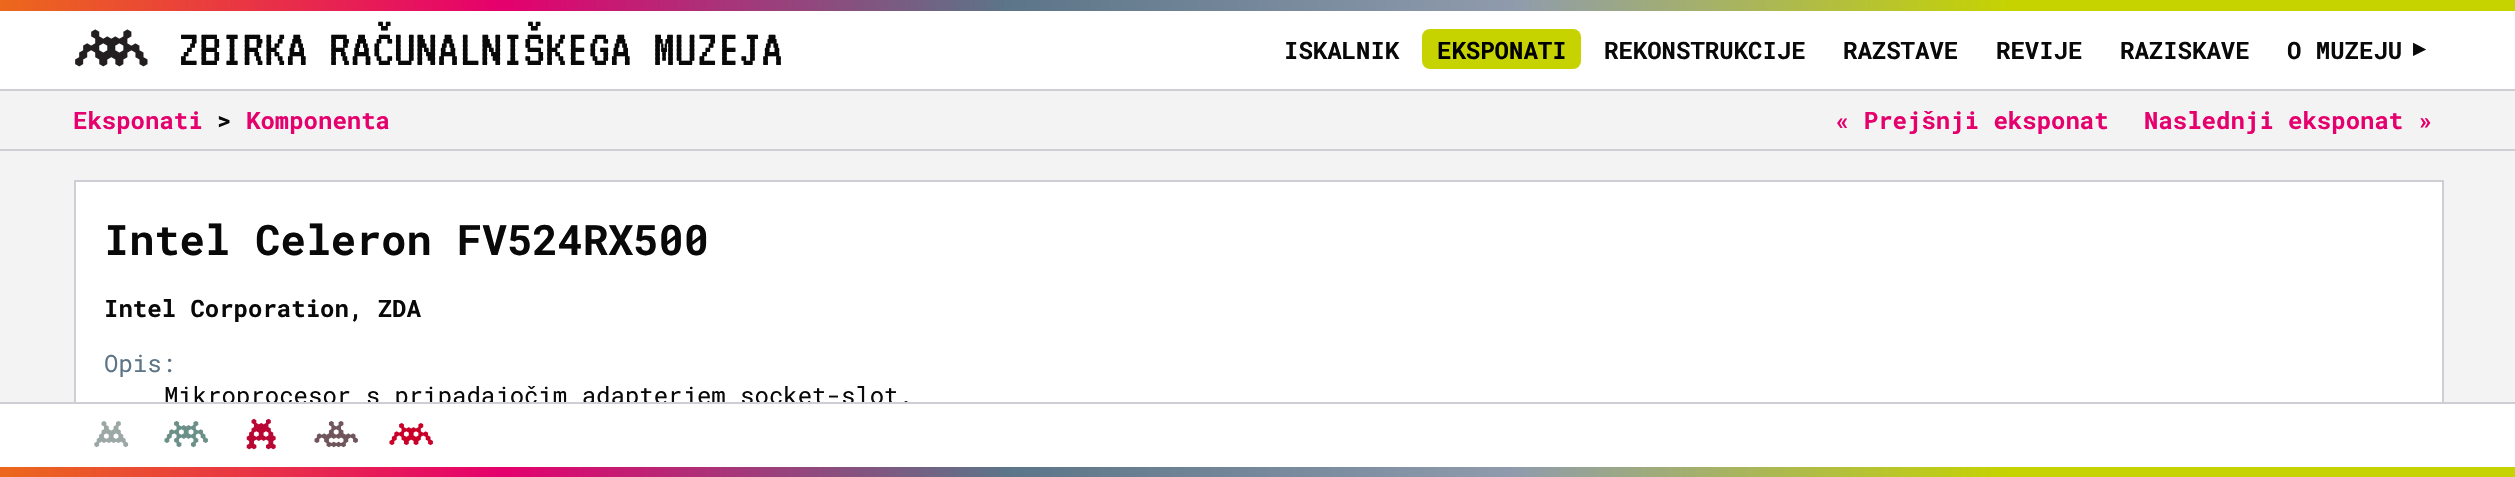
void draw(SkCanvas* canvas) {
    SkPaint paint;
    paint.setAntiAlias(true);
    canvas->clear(0xFFF3F3F3);
    paint.setColor(0xFFFFFFFF);
    canvas->drawRect(SkRect::MakeXYWH(0, 11, 2515, 78), paint);
    paint.setColor(0xFFCDCFD4);
    canvas->drawRect(SkRect::MakeXYWH(0, 89, 2515, 2), paint);
    {
        const SkColor colors[] = {0xFFEC681C, 0xFFE5006D, 0xFF5C7588, 0xFF8F9BAD, 0xFFC6D300};
        const float stops[] = {0, 0.2f, 0.4f, 0.6f, 0.8f};
        const SkPoint ends[] = {{0, 5.3f}, {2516, 5.2f}};
        paint.setShader(SkGradientShader::MakeLinear(ends, colors, stops, 5, SkTileMode::kClamp));
        paint.setAlpha(255);
    }
    canvas->drawRect(SkRect::MakeXYWH(0, 0, 2515, 11), paint);
    canvas->drawImageRect(SkImages::DeferredFromEncodedData(SkData::MakeFromFileName("img1.png")), SkRect::MakeXYWH(75, 29, 73, 38), SkSamplingOptions());
    SkFont font1(fontMgr->matchFamilyStyle("VT323", SkFontStyle::Normal()), 54);
    font1.setSubpixel(true);
    paint.setShader(nullptr);
    paint.setColor(0xFF090909);
    canvas->drawString("ZBIRKA RAČUNALNIŠKEGA MUZEJA", 178, 65, font1, paint);
    SkFont font2(fontMgr->matchFamilyStyle("Roboto Mono", SkFontStyle::Bold()), 24);
    font2.setSubpixel(true);
    canvas->drawString("ISKALNIK", 1284, 59, font2, paint);
    paint.setColor(0xFFC6D300);
    canvas->drawRoundRect(SkRect::MakeXYWH(1422, 29, 159, 40), 8, 8, paint);
    paint.setColor(0xFF000000);
    canvas->drawString("EKSPONATI", 1437, 59, font2, paint);
    paint.setColor(0xFF090909);
    canvas->drawString("REKONSTRUKCIJE", 1604, 59, font2, paint);
    canvas->drawString("RAZSTAVE", 1843, 59, font2, paint);
    canvas->drawString("REVIJE", 1996, 59, font2, paint);
    canvas->drawString("RAZISKAVE", 2120, 59, font2, paint);
    canvas->drawString("O MUZEJU", 2287, 59, font2, paint);
    SkFont font3(fontMgr->matchFamilyStyle("DejaVu Sans", SkFontStyle::Bold()), 24);
    font3.setSubpixel(true);
    canvas->drawString("▸", 2413, 56, font3, paint);
    paint.setColor(0xFFCDCFD4);
    canvas->drawRect(SkRect::MakeXYWH(0, 149, 2515, 2), paint);
    paint.setColor(0xFFE5006D);
    canvas->drawString("Eksponati", 73, 129, font2, paint);
    paint.setColor(0xFF090909);
    canvas->drawString(">", 217, 129, font2, paint);
    paint.setColor(0xFFE5006D);
    canvas->drawString("Komponenta", 246, 129, font2, paint);
    canvas->drawString("« Prejšnji eksponat", 1835, 129, font2, paint);
    canvas->drawString("Naslednji eksponat »", 2144, 129, font2, paint);
    paint.setColor(0xFFFFFFFF);
    canvas->drawRect(SkRect::MakeXYWH(76, 182, 2366, 220), paint);
    paint.setStyle(SkPaint::kStroke_Style);
    paint.setStrokeWidth(2);
    paint.setColor(0xFFCDCFD4);
    canvas->drawRect(SkRect::MakeXYWH(75, 181, 2368, 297), paint);
    SkFont font4(fontMgr->matchFamilyStyle("Roboto Mono", SkFontStyle::Bold()), 42);
    font4.setSubpixel(true);
    paint.setStyle(SkPaint::kFill_Style);
    paint.setColor(0xFF090909);
    canvas->drawString("Intel Celeron FV524RX500", 104, 255, font4, paint);
    canvas->drawString("Intel Corporation, ZDA", 104, 317, font2, paint);
    SkFont font5(fontMgr->matchFamilyStyle("Roboto Mono", SkFontStyle::Normal()), 24);
    font5.setSubpixel(true);
    paint.setColor(0xFF5C7588);
    canvas->drawString("Opis:", 104, 372, font5, paint);
    paint.setColor(0xFF090909);
    canvas->drawString("Mikroprocesor s pripadajočim adapterjem socket-slot.", 164, 404, font5, paint);
    paint.setColor(0xFFFFFFFF);
    canvas->drawRect(SkRect::MakeXYWH(0, 404, 2515, 63), paint);
    paint.setColor(0xFFCDCFD4);
    canvas->drawRect(SkRect::MakeXYWH(0, 402, 2515, 2), paint);
    canvas->drawImageRect(SkImages::DeferredFromEncodedData(SkData::MakeFromFileName("img2.png")), SkRect::MakeXYWH(94, 421, 35, 27), SkSamplingOptions());
    canvas->drawImageRect(SkImages::DeferredFromEncodedData(SkData::MakeFromFileName("img3.png")), SkRect::MakeXYWH(164, 420, 44, 28), SkSamplingOptions());
    canvas->drawImageRect(SkImages::DeferredFromEncodedData(SkData::MakeFromFileName("img4.png")), SkRect::MakeXYWH(246, 418, 30, 32), SkSamplingOptions());
    canvas->drawImageRect(SkImages::DeferredFromEncodedData(SkData::MakeFromFileName("img5.png")), SkRect::MakeXYWH(314, 420, 44, 28), SkSamplingOptions());
    canvas->drawImageRect(SkImages::DeferredFromEncodedData(SkData::MakeFromFileName("img6.png")), SkRect::MakeXYWH(389, 423, 44, 23), SkSamplingOptions());
    {
        const SkColor colors[] = {0xFFEC681C, 0xFFE5006D, 0xFF5C7588, 0xFF8F9BAD, 0xFFC6D300};
        const float stops[] = {0, 0.2f, 0.4f, 0.6f, 0.8f};
        const SkPoint ends[] = {{0, 472}, {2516, 472}};
        paint.setShader(SkGradientShader::MakeLinear(ends, colors, stops, 5, SkTileMode::kClamp));
        paint.setAlpha(255);
    }
    canvas->drawRect(SkRect::MakeXYWH(0, 467, 2515, 10), paint);
}
